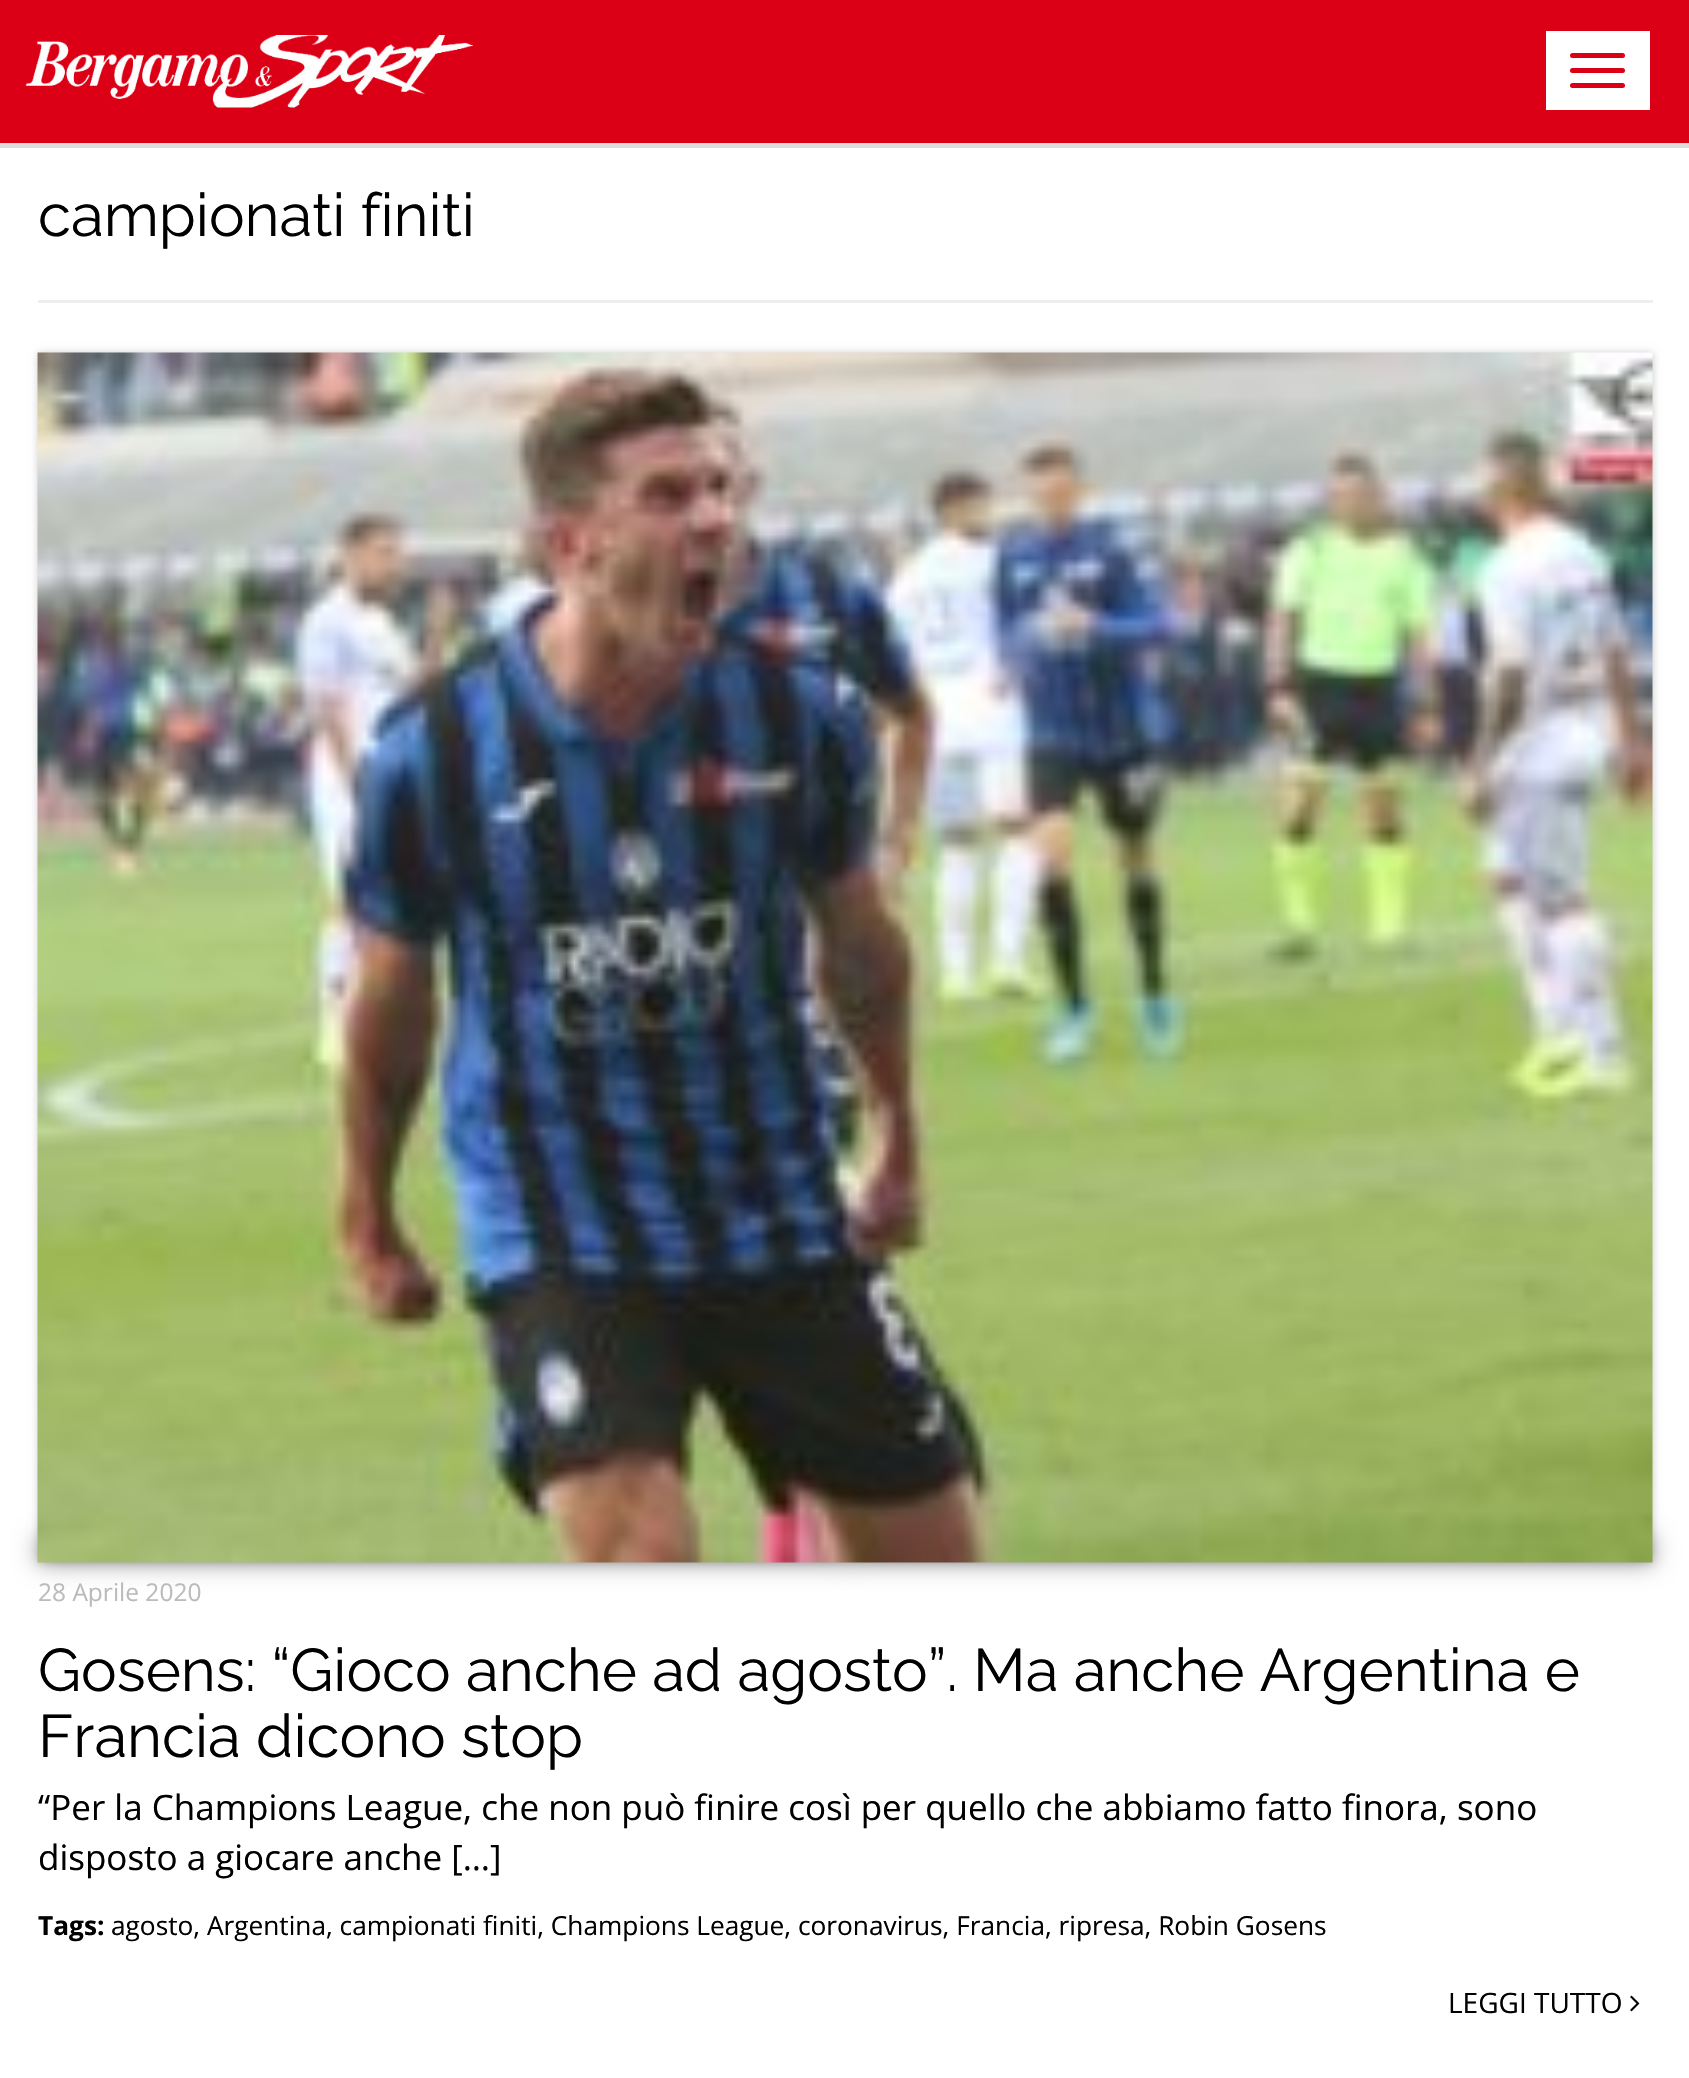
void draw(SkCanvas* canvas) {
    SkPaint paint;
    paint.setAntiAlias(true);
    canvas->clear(0xFFDCDCDC);
    paint.setColor(0xFFDC0016);
    canvas->drawRect(SkRect::MakeXYWH(0, 0, 1689, 143), paint);
    canvas->drawImageRect(SkImages::DeferredFromEncodedData(SkData::MakeFromFileName("img1.png")), SkRect::MakeXYWH(25, 35, 449, 73), SkSamplingOptions());
    paint.setColor(0xFFFFFFFF);
    canvas->drawRect(SkRect::MakeXYWH(1546, 31, 104, 79), paint);
    paint.setColor(0xFFDC0016);
    canvas->drawRoundRect(SkRect::MakeXYWH(1570, 53, 55, 5), 2.5f, 2.5f, paint);
    canvas->drawRoundRect(SkRect::MakeXYWH(1570, 68, 55, 5), 2.5f, 2.5f, paint);
    canvas->drawRoundRect(SkRect::MakeXYWH(1570, 83, 55, 5), 2.5f, 2.5f, paint);
    paint.setColor(0xFFFFFFFF);
    canvas->drawRect(SkRect::MakeXYWH(0, 148, 1689, 1930), paint);
    SkFont font1(fontMgr->matchFamilyStyle("Raleway", SkFontStyle::Normal()), 60);
    font1.setSubpixel(true);
    paint.setColor(0xFF000000);
    canvas->drawString("campionati finiti", 38, 236, font1, paint);
    paint.setColor(0xFFEEEEEE);
    canvas->drawRect(SkRect::MakeXYWH(38, 300, 1615, 3), paint);
    paint.setColor(0x33000000);
    paint.setMaskFilter(SkMaskFilter::MakeBlur(kNormal_SkBlurStyle, 4));
    canvas->drawRect(SkRect::MakeXYWH(38, 353, 1615, 1210), paint);
    paint.setMaskFilter(nullptr);
    paint.setColor(0x66000000);
    paint.setMaskFilter(SkMaskFilter::MakeBlur(kNormal_SkBlurStyle, 12.5f));
    canvas->drawRect(SkRect::MakeXYWH(38, 1538, 807, 25), paint);
    paint.setMaskFilter(nullptr);
    paint.setMaskFilter(SkMaskFilter::MakeBlur(kNormal_SkBlurStyle, 12.5f));
    canvas->drawRect(SkRect::MakeXYWH(845, 1538, 808, 25), paint);
    paint.setMaskFilter(nullptr);
    canvas->drawImageRect(SkImages::DeferredFromEncodedData(SkData::MakeFromFileName("img2.png")), SkRect::MakeXYWH(37, 352, 1616, 1211), SkSamplingOptions());
    SkFont font2(fontMgr->matchFamilyStyle("Open Sans", SkFontStyle::Normal()), 24.5f);
    font2.setSubpixel(true);
    paint.setColor(0xFFBBBBBB);
    canvas->drawString("28 Aprile 2020", 38, 1601, font2, paint);
    paint.setColor(0xFF000000);
    canvas->drawString("Gosens: “Gioco anche ad agosto”. Ma anche Argentina e", 38, 1691, font1, paint);
    canvas->drawString("Francia dicono stop", 38, 1757, font1, paint);
    SkFont font3(fontMgr->matchFamilyStyle("Open Sans", SkFontStyle::Normal()), 35);
    font3.setSubpixel(true);
    canvas->drawString("“Per la Champions League, che non può finire così per quello che abbiamo fatto finora, sono", 38, 1820, font3, paint);
    canvas->drawString("disposto a giocare anche […]", 38, 1870, font3, paint);
    SkFont font4(fontMgr->matchFamilyStyle("Open Sans", SkFontStyle::Bold()), 26.25f);
    font4.setSubpixel(true);
    canvas->drawString("Tags:", 38, 1935, font4, paint);
    SkFont font5(fontMgr->matchFamilyStyle("Open Sans", SkFontStyle::Normal()), 26.25f);
    font5.setSubpixel(true);
    canvas->drawString("agosto, Argentina, campionati finiti, Champions League, coronavirus, Francia, ripresa, Robin Gosens", 111, 1935, font5, paint);
    SkFont font6(fontMgr->matchFamilyStyle("Open Sans", SkFontStyle::Normal()), 28);
    font6.setSubpixel(true);
    canvas->drawString("LEGGI TUTTO", 1448, 2013, font6, paint);
    canvas->drawImageRect(SkImages::DeferredFromEncodedData(SkData::MakeFromFileName("img3.png")), SkRect::MakeXYWH(1630, 1995, 10, 17), SkSamplingOptions());
}
